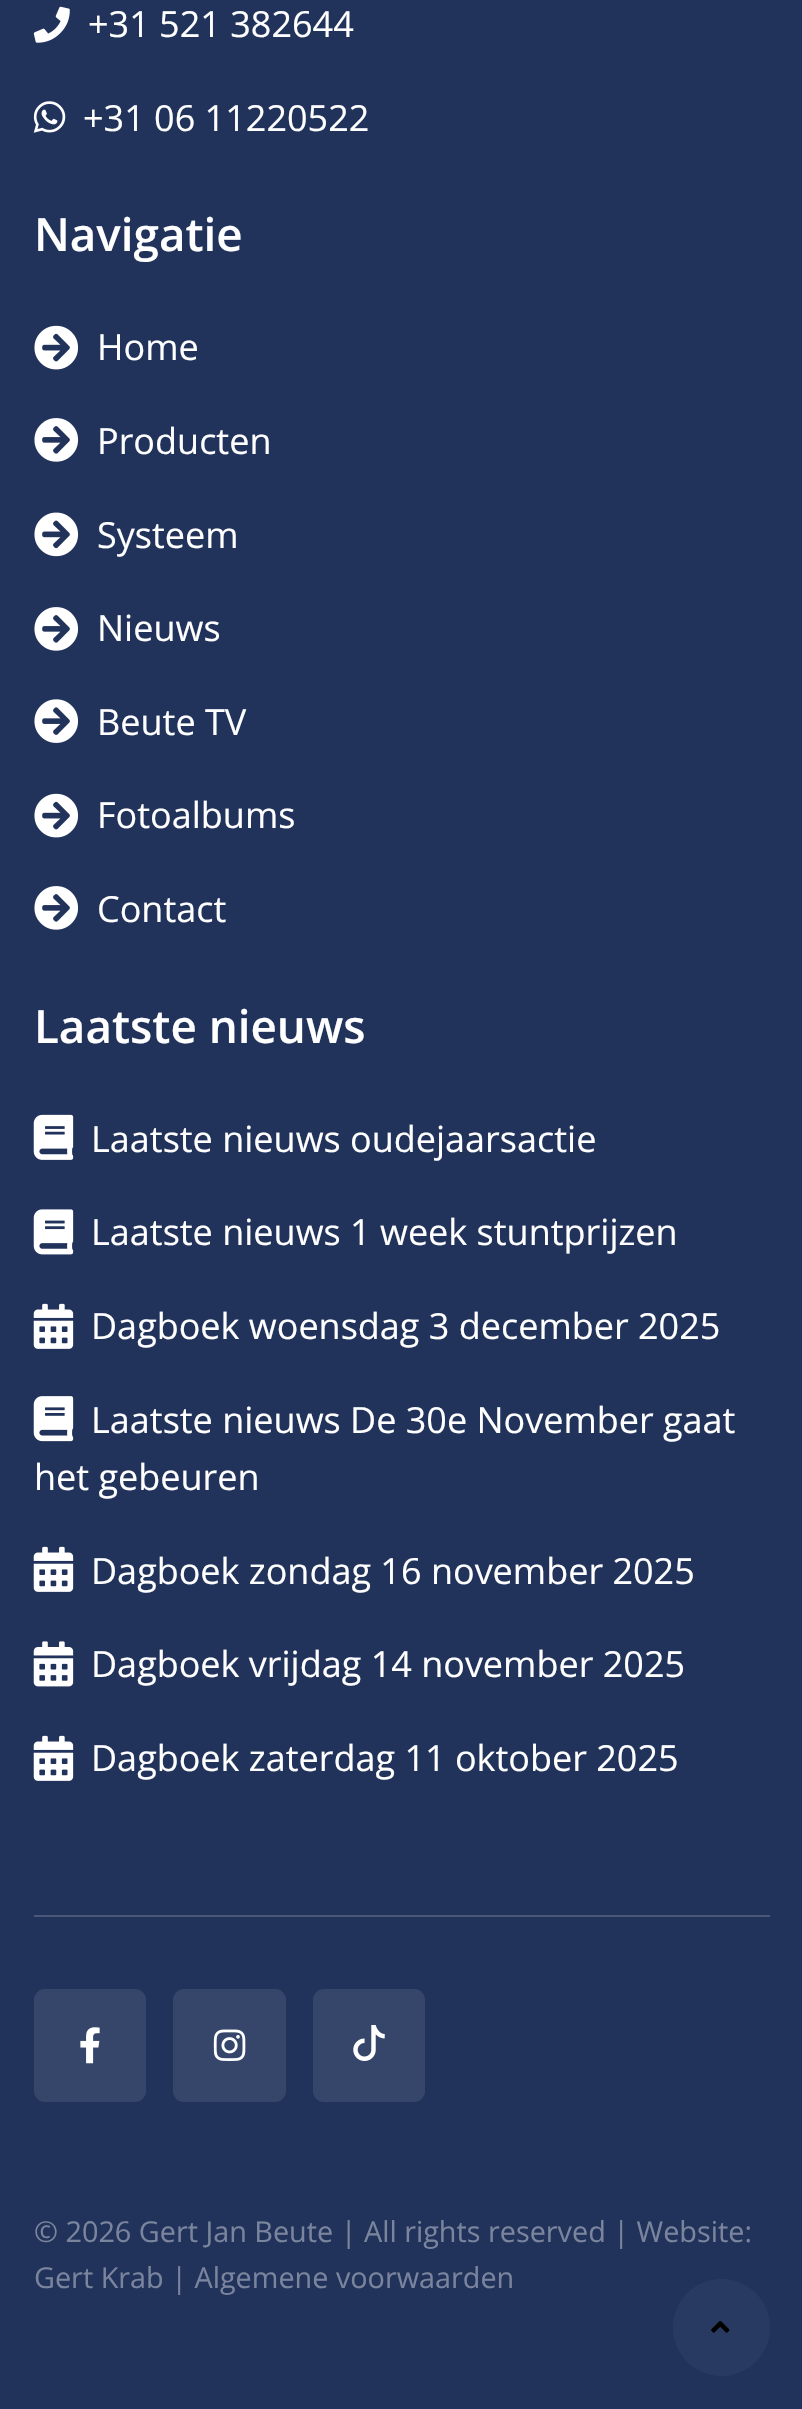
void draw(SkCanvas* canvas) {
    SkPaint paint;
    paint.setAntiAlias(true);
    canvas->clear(0xFF21325B);
    canvas->drawImageRect(SkImages::DeferredFromEncodedData(SkData::MakeFromFileName("img1.png")), SkRect::MakeXYWH(33, 6, 37, 37), SkSamplingOptions());
    SkFont font1(fontMgr->matchFamilyStyle("Open Sans", SkFontStyle::Normal()), 36);
    font1.setSubpixel(true);
    paint.setColor(0xFFFFFFFF);
    canvas->drawString("+31 521 382644", 88, 37, font1, paint);
    canvas->drawImageRect(SkImages::DeferredFromEncodedData(SkData::MakeFromFileName("img2.png")), SkRect::MakeXYWH(33, 101, 33, 32), SkSamplingOptions());
    canvas->drawString("+31 06 11220522", 83, 131, font1, paint);
    SkFont font2(fontMgr->matchFamilyStyle("Open Sans", SkFontStyle(600, SkFontStyle::kNormal_Width, SkFontStyle::kUpright_Slant)), 45.75f);
    font2.setSubpixel(true);
    canvas->drawString("Navigatie", 34, 251, font2, paint);
    canvas->drawImageRect(SkImages::DeferredFromEncodedData(SkData::MakeFromFileName("img3.png")), SkRect::MakeXYWH(34, 325, 45, 45), SkSamplingOptions());
    canvas->drawString("Home", 97, 360, font1, paint);
    canvas->drawImageRect(SkImages::DeferredFromEncodedData(SkData::MakeFromFileName("img4.png")), SkRect::MakeXYWH(34, 418, 45, 44), SkSamplingOptions());
    canvas->drawString("Producten", 97, 454, font1, paint);
    canvas->drawImageRect(SkImages::DeferredFromEncodedData(SkData::MakeFromFileName("img5.png")), SkRect::MakeXYWH(34, 512, 45, 45), SkSamplingOptions());
    canvas->drawString("Systeem", 97, 548, font1, paint);
    canvas->drawImageRect(SkImages::DeferredFromEncodedData(SkData::MakeFromFileName("img4.png")), SkRect::MakeXYWH(34, 607, 45, 44), SkSamplingOptions());
    canvas->drawString("Nieuws", 97, 641, font1, paint);
    canvas->drawImageRect(SkImages::DeferredFromEncodedData(SkData::MakeFromFileName("img6.png")), SkRect::MakeXYWH(34, 699, 45, 44), SkSamplingOptions());
    canvas->drawString("Beute TV", 97, 735, font1, paint);
    canvas->drawImageRect(SkImages::DeferredFromEncodedData(SkData::MakeFromFileName("img3.png")), SkRect::MakeXYWH(34, 793, 45, 45), SkSamplingOptions());
    canvas->drawString("Fotoalbums", 97, 828, font1, paint);
    canvas->drawImageRect(SkImages::DeferredFromEncodedData(SkData::MakeFromFileName("img4.png")), SkRect::MakeXYWH(34, 886, 45, 44), SkSamplingOptions());
    canvas->drawString("Contact", 97, 922, font1, paint);
    canvas->drawString("Laatste nieuws", 34, 1043, font2, paint);
    canvas->drawImageRect(SkImages::DeferredFromEncodedData(SkData::MakeFromFileName("img7.png")), SkRect::MakeXYWH(33, 1114, 41, 46), SkSamplingOptions());
    canvas->drawString("Laatste nieuws oudejaarsactie", 91, 1152, font1, paint);
    canvas->drawImageRect(SkImages::DeferredFromEncodedData(SkData::MakeFromFileName("img8.png")), SkRect::MakeXYWH(33, 1209, 41, 46), SkSamplingOptions());
    canvas->drawString("Laatste nieuws 1 week stuntprijzen", 91, 1245, font1, paint);
    canvas->drawImageRect(SkImages::DeferredFromEncodedData(SkData::MakeFromFileName("img9.png")), SkRect::MakeXYWH(33, 1303, 41, 46), SkSamplingOptions());
    canvas->drawString("Dagboek woensdag 3 december 2025", 91, 1339, font1, paint);
    canvas->drawImageRect(SkImages::DeferredFromEncodedData(SkData::MakeFromFileName("img10.png")), SkRect::MakeXYWH(33, 1396, 41, 46), SkSamplingOptions());
    canvas->drawString("Laatste nieuws De 30e November gaat", 91, 1433, font1, paint);
    canvas->drawString("het gebeuren", 34, 1490, font1, paint);
    canvas->drawImageRect(SkImages::DeferredFromEncodedData(SkData::MakeFromFileName("img9.png")), SkRect::MakeXYWH(33, 1546, 41, 46), SkSamplingOptions());
    canvas->drawString("Dagboek zondag 16 november 2025", 91, 1584, font1, paint);
    canvas->drawImageRect(SkImages::DeferredFromEncodedData(SkData::MakeFromFileName("img11.png")), SkRect::MakeXYWH(33, 1641, 41, 46), SkSamplingOptions());
    canvas->drawString("Dagboek vrijdag 14 november 2025", 91, 1677, font1, paint);
    canvas->drawImageRect(SkImages::DeferredFromEncodedData(SkData::MakeFromFileName("img9.png")), SkRect::MakeXYWH(33, 1735, 41, 46), SkSamplingOptions());
    canvas->drawString("Dagboek zaterdag 11 oktober 2025", 91, 1771, font1, paint);
    paint.setColor(0xFF495779);
    canvas->drawRect(SkRect::MakeXYWH(34, 1915, 736, 2), paint);
    paint.setColor(0xFF36466B);
    canvas->drawRoundRect(SkRect::MakeXYWH(34, 1989, 112, 113), 11, 11, paint);
    canvas->drawImageRect(SkImages::DeferredFromEncodedData(SkData::MakeFromFileName("img12.png")), SkRect::MakeXYWH(80, 2027, 20, 37), SkSamplingOptions());
    canvas->drawRoundRect(SkRect::MakeXYWH(173, 1989, 113, 113), 11, 11, paint);
    canvas->drawImageRect(SkImages::DeferredFromEncodedData(SkData::MakeFromFileName("img13.png")), SkRect::MakeXYWH(213, 2029, 33, 32), SkSamplingOptions());
    canvas->drawRoundRect(SkRect::MakeXYWH(313, 1989, 112, 113), 11, 11, paint);
    canvas->drawImageRect(SkImages::DeferredFromEncodedData(SkData::MakeFromFileName("img14.png")), SkRect::MakeXYWH(353, 2025, 32, 36), SkSamplingOptions());
    SkFont font3(fontMgr->matchFamilyStyle("Open Sans", SkFontStyle::Normal()), 28.8f);
    font3.setSubpixel(true);
    paint.setColor(0xFF7A849D);
    canvas->drawString("© 2026 Gert Jan Beute | All rights reserved | Website:", 34, 2242, font3, paint);
    canvas->drawString("Gert Krab | Algemene voorwaarden", 34, 2288, font3, paint);
    paint.setColor(0xFF293A62);
    canvas->drawCircle(721.5f, 2327.5f, 48.5f, paint);
    canvas->drawImageRect(SkImages::DeferredFromEncodedData(SkData::MakeFromFileName("img15.png")), SkRect::MakeXYWH(711, 2321, 19, 12), SkSamplingOptions());
}
